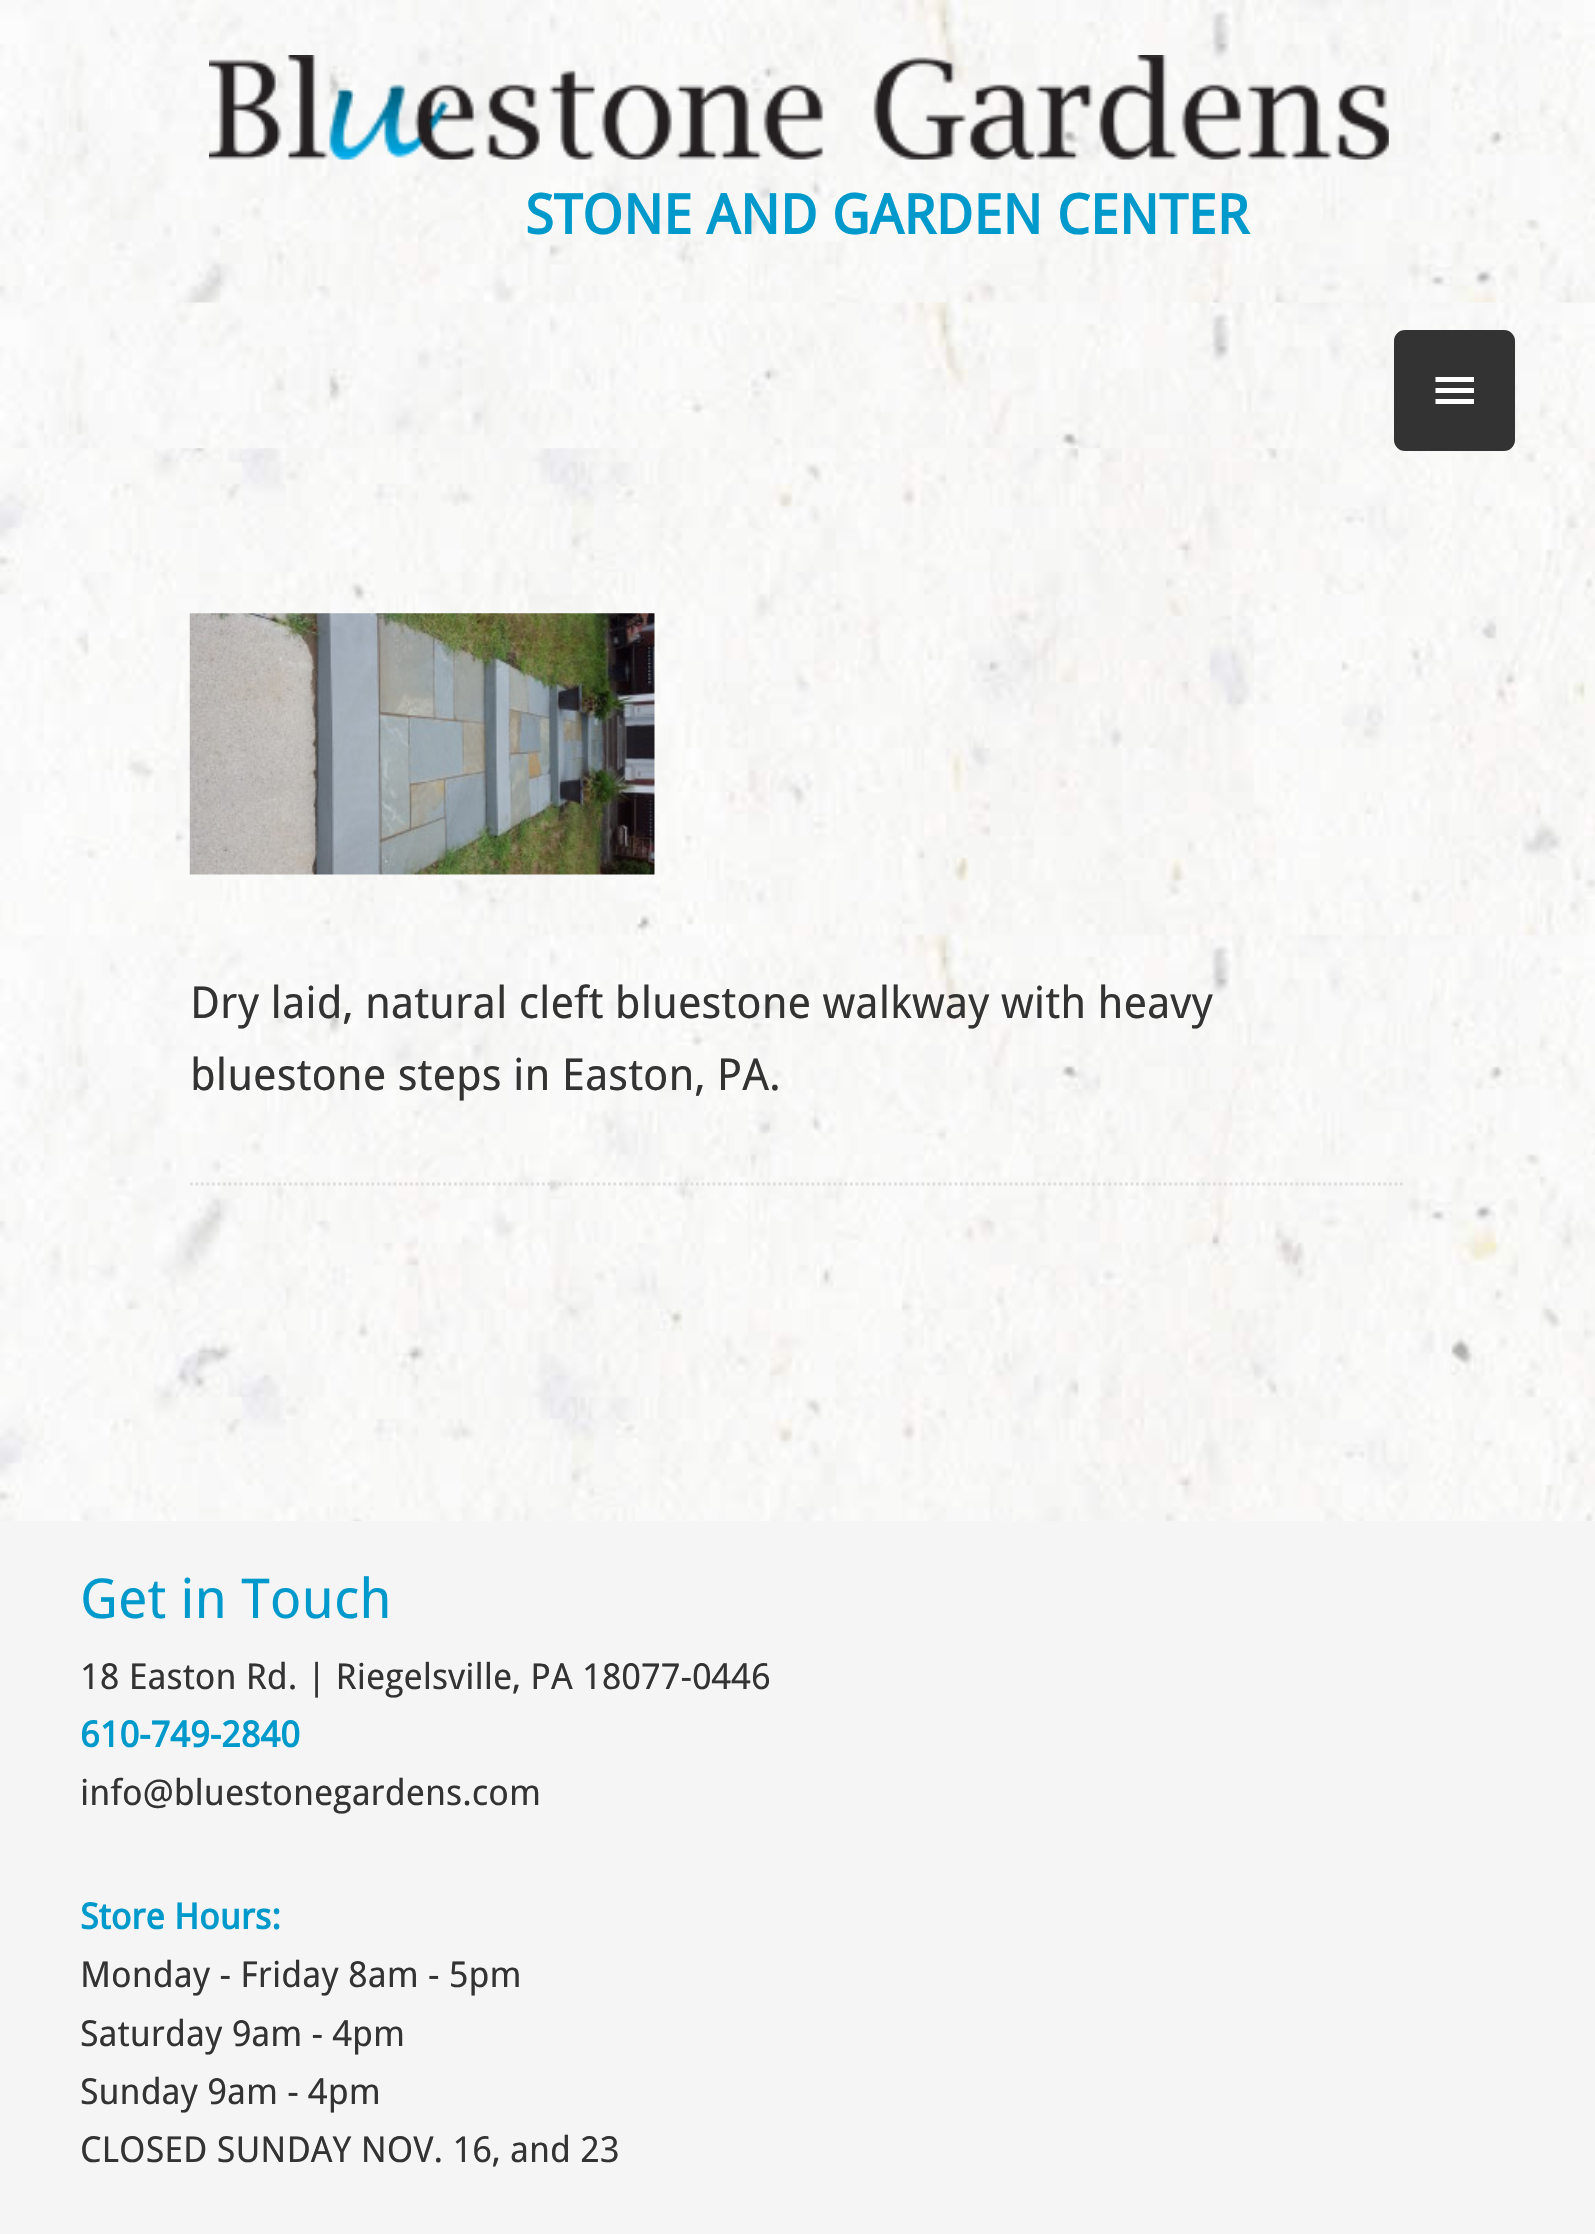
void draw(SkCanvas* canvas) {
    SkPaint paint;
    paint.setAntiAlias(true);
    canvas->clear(0xFFFFFFFF);
    canvas->drawImageRect(SkImages::DeferredFromEncodedData(SkData::MakeFromFileName("img1.png")), SkRect::MakeXYWH(0, 302, 1595, 1219), SkSamplingOptions());
    canvas->drawImageRect(SkImages::DeferredFromEncodedData(SkData::MakeFromFileName("img2.png")), SkRect::MakeXYWH(0, 0, 1595, 303), SkSamplingOptions());
    canvas->drawImageRect(SkImages::DeferredFromEncodedData(SkData::MakeFromFileName("img3.png")), SkRect::MakeXYWH(209, 55, 1180, 105), SkSamplingOptions());
    SkFont font1(fontMgr->matchFamilyStyle("Droid Sans", SkFontStyle::Bold()), 55);
    font1.setSubpixel(true);
    paint.setColor(0xFF0099CB);
    canvas->drawString("STONE AND GARDEN CENTER", 525, 234, font1, paint);
    canvas->drawImageRect(SkImages::DeferredFromEncodedData(SkData::MakeFromFileName("img4.png")), SkRect::MakeXYWH(0, 302, 1595, 147), SkSamplingOptions());
    paint.setColor(0xFF333333);
    canvas->drawRoundRect(SkRect::MakeXYWH(1397, 333, 115, 115), 8, 8, paint);
    paint.setStyle(SkPaint::kStroke_Style);
    paint.setStrokeWidth(6);
    canvas->drawRoundRect(SkRect::MakeXYWH(1397, 333, 115, 115), 8, 8, paint);
    paint.setStyle(SkPaint::kFill_Style);
    paint.setColor(0xFFFFFFFF);
    canvas->drawPath(SkPathBuilder().moveTo(1474, 382).lineTo(1474, 377).lineTo(1435.5f, 377).lineTo(1435.5f, 382).close().moveTo(1474, 393).lineTo(1474, 388).lineTo(1435.5f, 388).lineTo(1435.5f, 393).close().moveTo(1474, 404).lineTo(1474, 399).lineTo(1435.5f, 399).lineTo(1435.5f, 404).close().detach(), paint);
    canvas->drawImageRect(SkImages::DeferredFromEncodedData(SkData::MakeFromFileName("img5.png")), SkRect::MakeXYWH(189, 613, 466, 262), SkSamplingOptions());
    SkFont font2(fontMgr->matchFamilyStyle("Droid Sans", SkFontStyle::Normal()), 44);
    font2.setSubpixel(true);
    paint.setColor(0xFF333333);
    canvas->drawString("Dry laid, natural cleft bluestone walkway with heavy", 190, 1018, font2, paint);
    canvas->drawString("bluestone steps in Easton, PA.", 190, 1090, font2, paint);
    paint.setStyle(SkPaint::kStroke_Style);
    paint.setStrokeWidth(2.8f);
    paint.setColor(0xFFDDDDDD);
    paint.setPathEffect(SkDashPathEffect::Make({{2.75f, 2.75f}}, 0));
    canvas->drawPath(SkPathBuilder().moveTo(190, 1184).lineTo(1405, 1184).detach(), paint);
    paint.setPathEffect(nullptr);
    paint.setStyle(SkPaint::kFill_Style);
    paint.setColor(0xFFF5F5F5);
    canvas->drawRect(SkRect::MakeXYWH(0, 1521, 1595, 713), paint);
    SkFont font3(fontMgr->matchFamilyStyle("Droid Sans", SkFontStyle::Normal()), 55);
    font3.setSubpixel(true);
    paint.setColor(0xFF0099CB);
    canvas->drawString("Get in Touch", 80, 1618, font3, paint);
    SkFont font4(fontMgr->matchFamilyStyle("Droid Sans", SkFontStyle::Normal()), 35.75f);
    font4.setSubpixel(true);
    paint.setColor(0xFF333333);
    canvas->drawString("18 Easton Rd. | Riegelsville, PA 18077-0446", 80, 1689, font4, paint);
    SkFont font5(fontMgr->matchFamilyStyle("Droid Sans", SkFontStyle::Bold()), 35.75f);
    font5.setSubpixel(true);
    paint.setColor(0xFF0099CB);
    canvas->drawString("610-749-2840", 80, 1747, font5, paint);
    paint.setColor(0xFF333333);
    canvas->drawString("info@bluestonegardens.com", 80, 1805, font4, paint);
    paint.setColor(0xFF0099CB);
    canvas->drawString("Store Hours:", 80, 1929, font5, paint);
    paint.setColor(0xFF333333);
    canvas->drawString("Monday - Friday 8am - 5pm", 80, 1987, font4, paint);
    canvas->drawString("Saturday 9am - 4pm", 80, 2046, font4, paint);
    canvas->drawString("Sunday 9am - 4pm", 80, 2104, font4, paint);
    canvas->drawString("CLOSED SUNDAY NOV. 16, and 23", 80, 2162, font4, paint);
}
